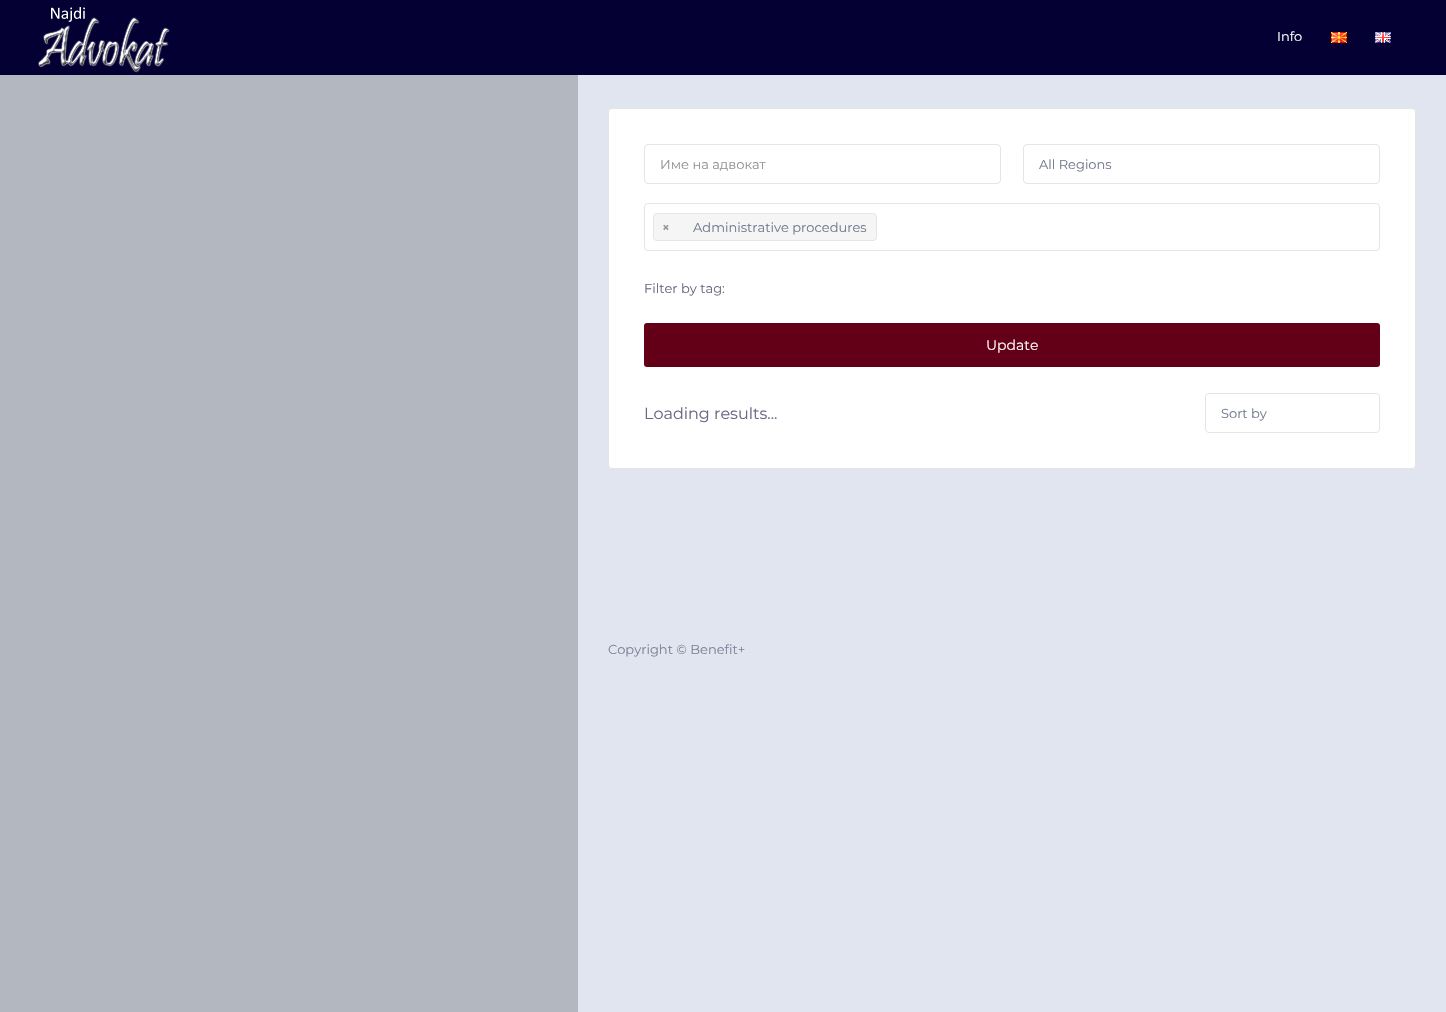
void draw(SkCanvas* canvas) {
    SkPaint paint;
    paint.setAntiAlias(true);
    canvas->clear(0xFFE1E5EF);
    paint.setColor(0xFF050033);
    canvas->drawRect(SkRect::MakeXYWH(0, 0, 1446, 75), paint);
    canvas->drawImageRect(SkImages::DeferredFromEncodedData(SkData::MakeFromFileName("img1.png")), SkRect::MakeXYWH(38, 7, 132, 66), SkSamplingOptions());
    SkFont font1(fontMgr->matchFamilyStyle("Montserrat", SkFontStyle::Normal()), 13);
    font1.setSubpixel(true);
    paint.setColor(0xFFFFFFFF);
    canvas->drawString("Info", 1277, 41, font1, paint);
    canvas->drawImageRect(SkImages::DeferredFromEncodedData(SkData::MakeFromFileName("img2.png")), SkRect::MakeXYWH(1331, 32, 16, 11), SkSamplingOptions());
    canvas->drawImageRect(SkImages::DeferredFromEncodedData(SkData::MakeFromFileName("img3.png")), SkRect::MakeXYWH(1375, 32, 16, 11), SkSamplingOptions());
    paint.setColor(0xFFB3B8C0);
    canvas->drawRect(SkRect::MakeXYWH(0, 75, 578, 937), paint);
    paint.setColor(0xFFFFFFFF);
    canvas->drawRoundRect(SkRect::MakeXYWH(608.5f, 108.5f, 807, 360), 3.5f, 3.5f, paint);
    paint.setStyle(SkPaint::kStroke_Style);
    paint.setStrokeWidth(1);
    paint.setColor(0xFFE5E5E5);
    canvas->drawRoundRect(SkRect::MakeXYWH(608.5f, 108.5f, 807, 360), 3.5f, 3.5f, paint);
    canvas->drawRoundRect(SkRect::MakeXYWH(644.5f, 144.5f, 356, 39), 3.5f, 3.5f, paint);
    paint.setStyle(SkPaint::kFill_Style);
    paint.setColor(0xFF939393);
    canvas->drawString("Име на адвокат", 660, 169, font1, paint);
    paint.setStyle(SkPaint::kStroke_Style);
    paint.setColor(0xFFE5E5E5);
    canvas->drawRoundRect(SkRect::MakeXYWH(1023.5f, 144.5f, 356, 39), 3.5f, 3.5f, paint);
    paint.setStyle(SkPaint::kFill_Style);
    paint.setColor(0xFF717A8F);
    canvas->drawString("All Regions", 1039, 169, font1, paint);
    paint.setStyle(SkPaint::kStroke_Style);
    paint.setColor(0xFFE5E5E5);
    canvas->drawRoundRect(SkRect::MakeXYWH(644.5f, 203.5f, 735, 47), 3.5f, 3.5f, paint);
    paint.setStyle(SkPaint::kFill_Style);
    paint.setColor(0xFFF5F5F5);
    canvas->drawRoundRect(SkRect::MakeXYWH(653.5f, 213.5f, 223, 27), 3.5f, 3.5f, paint);
    paint.setStyle(SkPaint::kStroke_Style);
    paint.setColor(0xFFE5E5E5);
    canvas->drawRoundRect(SkRect::MakeXYWH(653.5f, 213.5f, 223, 27), 3.5f, 3.5f, paint);
    SkFont font2(fontMgr->matchFamilyStyle("Montserrat", SkFontStyle::Bold()), 13);
    font2.setSubpixel(true);
    paint.setStyle(SkPaint::kFill_Style);
    paint.setColor(0xFF999999);
    canvas->drawString("×", 662, 232, font2, paint);
    paint.setColor(0xFF717A8F);
    canvas->drawString("Administrative procedures", 693, 232, font1, paint);
    paint.setColor(0xFF686884);
    canvas->drawString("Filter by tag:", 644, 293, font1, paint);
    paint.setColor(0xFF630017);
    canvas->drawRoundRect(SkRect::MakeXYWH(644, 323, 736, 44), 3, 3, paint);
    SkFont font3(fontMgr->matchFamilyStyle("Montserrat", SkFontStyle::Normal()), 14);
    font3.setSubpixel(true);
    paint.setColor(0xFFFFFFFF);
    canvas->drawString("Update", 986, 350, font3, paint);
    SkFont font4(fontMgr->matchFamilyStyle("Montserrat", SkFontStyle::Normal()), 16);
    font4.setSubpixel(true);
    paint.setColor(0xFF686884);
    canvas->drawString("Loading results...", 644, 419, font4, paint);
    paint.setStyle(SkPaint::kStroke_Style);
    paint.setColor(0xFFE5E5E5);
    canvas->drawRoundRect(SkRect::MakeXYWH(1205.5f, 393.5f, 174, 39), 3.5f, 3.5f, paint);
    paint.setStyle(SkPaint::kFill_Style);
    paint.setColor(0xFF717A8F);
    canvas->drawString("Sort by", 1221, 418, font1, paint);
    paint.setColor(0xFF808199);
    canvas->drawString("Copyright © Benefit+", 608, 654, font1, paint);
}
